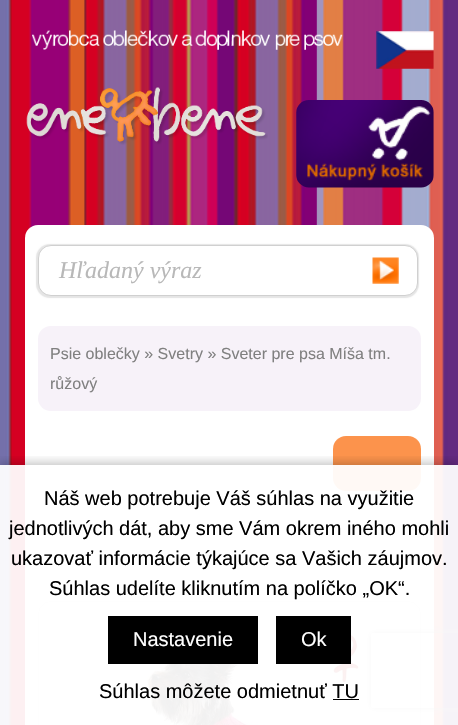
void draw(SkCanvas* canvas) {
    SkPaint paint;
    paint.setAntiAlias(true);
    canvas->clear(0xFFFFFFFF);
    canvas->drawImageRect(SkImages::DeferredFromEncodedData(SkData::MakeFromFileName("img1.png")), SkRect::MakeXYWH(0, 0, 458, 725), SkSamplingOptions());
    canvas->drawImageRect(SkImages::DeferredFromEncodedData(SkData::MakeFromFileName("img2.png")), SkRect::MakeXYWH(32, 30, 311, 20), SkSamplingOptions());
    canvas->drawImageRect(SkImages::DeferredFromEncodedData(SkData::MakeFromFileName("img3.png")), SkRect::MakeXYWH(376, 31, 58, 38), SkSamplingOptions());
    canvas->drawImageRect(SkImages::DeferredFromEncodedData(SkData::MakeFromFileName("img4.png")), SkRect::MakeXYWH(26, 87, 242, 58), SkSamplingOptions());
    canvas->drawImageRect(SkImages::DeferredFromEncodedData(SkData::MakeFromFileName("img5.png")), SkRect::MakeXYWH(296, 100, 138, 88), SkSamplingOptions());
    paint.setColor(0xFFFFFFFF);
    canvas->drawRoundRect(SkRect::MakeXYWH(25, 225, 409, 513), 13, 13, paint);
    paint.setColor(0x1A000000);
    paint.setMaskFilter(SkMaskFilter::MakeBlur(kNormal_SkBlurStyle, 0.5f));
    canvas->drawRoundRect(SkRect::MakeXYWH(36, 244, 383, 54), 14, 14, paint);
    paint.setMaskFilter(nullptr);
    paint.setColor(0xFFFFFFFF);
    canvas->drawRoundRect(SkRect::MakeXYWH(38.5f, 245.5f, 379, 50), 12.5f, 12.5f, paint);
    paint.setStyle(SkPaint::kStroke_Style);
    paint.setStrokeWidth(1);
    paint.setColor(0xFFD0D0D0);
    canvas->drawRoundRect(SkRect::MakeXYWH(38.5f, 245.5f, 379, 50), 12.5f, 12.5f, paint);
    SkFont font1(fontMgr->matchFamilyStyle("Liberation Serif", SkFontStyle::Italic()), 24);
    font1.setSubpixel(true);
    paint.setStyle(SkPaint::kFill_Style);
    paint.setColor(0xFFB8B8B8);
    canvas->drawString("Hľadaný výraz", 59, 278, font1, paint);
    canvas->drawImageRect(SkImages::DeferredFromEncodedData(SkData::MakeFromFileName("img6.png")), SkRect::MakeXYWH(372, 257, 27, 27), SkSamplingOptions());
    paint.setColor(0xFFF7F2F9);
    canvas->drawRoundRect(SkRect::MakeXYWH(38, 326, 383, 85), 13, 13, paint);
    SkFont font2(fontMgr->matchFamilyStyle("Liberation Sans", SkFontStyle::Normal()), 16);
    font2.setSubpixel(true);
    paint.setColor(0xFF808080);
    canvas->drawString("Psie oblečky » Svetry » Sveter pre psa Míša tm.", 50, 359, font2, paint);
    canvas->drawString("růžový", 50, 389, font2, paint);
    paint.setColor(0xFFFC934C);
    canvas->drawRoundRect(SkRect::MakeXYWH(333, 436, 88, 55), 13, 13, paint);
    paint.setStyle(SkPaint::kStroke_Style);
    paint.setColor(0xFFE2E2E2);
    canvas->drawRoundRect(SkRect::MakeXYWH(38.5f, 601.5f, 382, 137), 12.5f, 12.5f, paint);
    canvas->drawImageRect(SkImages::DeferredFromEncodedData(SkData::MakeFromFileName("img7.png")), SkRect::MakeXYWH(144, 627, 216, 98), SkSamplingOptions());
    canvas->save();
    canvas->clipRect(SkRect::MakeXYWH(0, 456, 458, 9));
    paint.setStyle(SkPaint::kFill_Style);
    paint.setColor(0x40000000);
    paint.setMaskFilter(SkMaskFilter::MakeBlur(kNormal_SkBlurStyle, 5));
    canvas->drawRect(SkRect::MakeXYWH(0, 463, 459, 260), paint);
    paint.setMaskFilter(nullptr);
    canvas->restore();
    canvas->save();
    canvas->clipPath(SkPathBuilder(SkPathFillType::kEvenOdd).moveTo(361, 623).lineTo(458, 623).lineTo(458, 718).lineTo(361, 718).close().moveTo(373.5f, 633).lineTo(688.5f, 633).cubicTo(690, 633, 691, 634, 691, 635.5f).lineTo(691, 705.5f).cubicTo(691, 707, 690, 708, 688.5f, 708).lineTo(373.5f, 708).cubicTo(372, 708, 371, 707, 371, 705.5f).lineTo(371, 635.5f).cubicTo(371, 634, 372, 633, 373.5f, 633).close().detach(), true);
    paint.setColor(0xFF808080);
    paint.setMaskFilter(SkMaskFilter::MakeBlur(kNormal_SkBlurStyle, 3));
    canvas->drawRoundRect(SkRect::MakeXYWH(371, 633, 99, 75), 2.5f, 2.5f, paint);
    paint.setMaskFilter(nullptr);
    canvas->restore();
    paint.setColor(0xF0FFFFFF);
    canvas->drawRect(SkRect::MakeXYWH(0, 465, 458, 260), paint);
    SkFont font3(fontMgr->matchFamilyStyle("Liberation Sans", SkFontStyle::Normal()), 20);
    font3.setSubpixel(true);
    paint.setColor(0xFF000000);
    canvas->drawString("Náš web potrebuje Váš súhlas na využitie", 44, 505, font3, paint);
    canvas->drawString("jednotlivých dát, aby sme Vám okrem iného mohli", 9, 535, font3, paint);
    canvas->drawString("ukazovať informácie týkajúce sa Vašich záujmov.", 11, 565, font3, paint);
    canvas->drawString("Súhlas udelíte kliknutím na políčko „OK“.", 49, 595, font3, paint);
    canvas->drawRect(SkRect::MakeXYWH(108, 616, 150, 48), paint);
    paint.setColor(0xFFFFFFFF);
    canvas->drawString("Nastavenie", 133, 646, font3, paint);
    paint.setColor(0xFF000000);
    canvas->drawRect(SkRect::MakeXYWH(276, 616, 75, 48), paint);
    paint.setColor(0xFFFFFFFF);
    canvas->drawString("Ok", 301, 646, font3, paint);
    paint.setColor(0xFF000000);
    canvas->drawString("Súhlas môžete odmietnuť TU", 99, 698, font3, paint);
    canvas->drawRect(SkRect::MakeXYWH(333, 699, 26, 1), paint);
}
